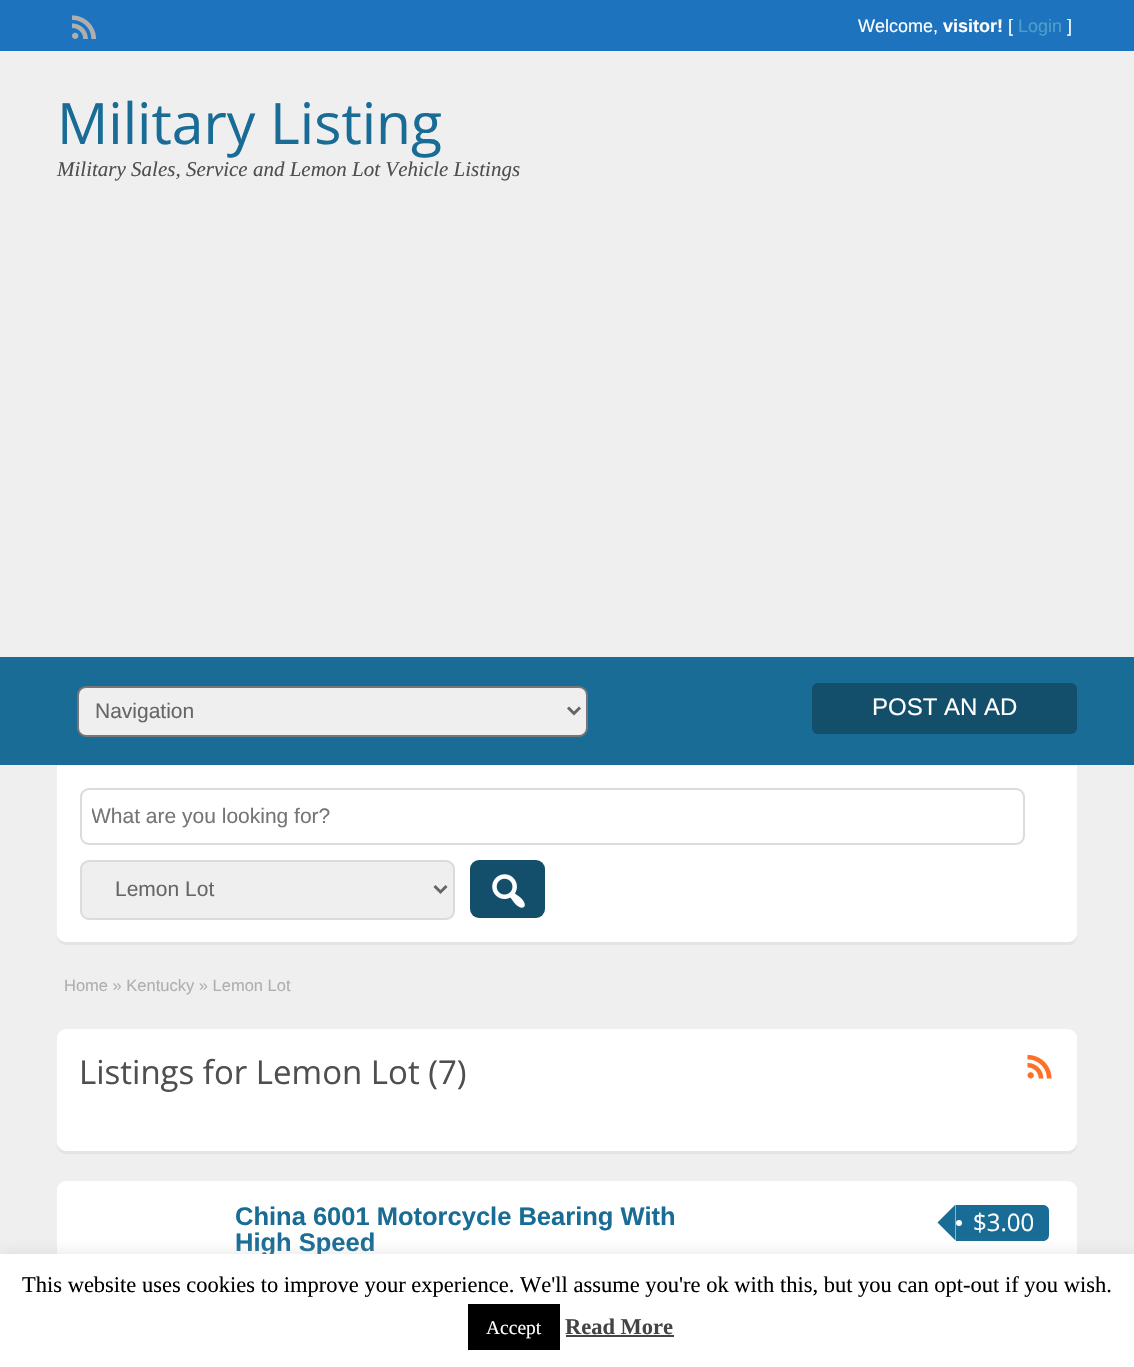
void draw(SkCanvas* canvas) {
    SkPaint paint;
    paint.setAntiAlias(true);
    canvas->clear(0xFFEFEFEF);
    paint.setColor(0xFF1E73BE);
    canvas->drawRect(SkRect::MakeXYWH(0, 0, 1134, 51), paint);
    canvas->drawImageRect(SkImages::DeferredFromEncodedData(SkData::MakeFromFileName("img1.png")), SkRect::MakeXYWH(72, 15, 24, 24), SkSamplingOptions());
    SkFont font1(fontMgr->matchFamilyStyle("Liberation Sans", SkFontStyle::Normal()), 18);
    font1.setSubpixel(true);
    paint.setColor(0xFFFFFFFF);
    canvas->drawString("Welcome,", 858, 32, font1, paint);
    SkFont font2(fontMgr->matchFamilyStyle("Liberation Sans", SkFontStyle::Bold()), 18);
    font2.setSubpixel(true);
    canvas->drawString("visitor!", 943, 32, font2, paint);
    canvas->drawString("[", 1008, 32, font1, paint);
    paint.setColor(0xFF4BA0CA);
    canvas->drawString("Login", 1018, 32, font1, paint);
    paint.setColor(0xFFFFFFFF);
    canvas->drawString("]", 1067, 32, font1, paint);
    SkFont font3(fontMgr->matchFamilyStyle("Open Sans", SkFontStyle::Normal()), 57);
    font3.setSubpixel(true);
    paint.setColor(0xFF186C95);
    canvas->drawString("Military Listing", 57, 144, font3, paint);
    SkFont font4(fontMgr->matchFamilyStyle("Liberation Serif", SkFontStyle::Italic()), 21);
    font4.setSubpixel(true);
    paint.setColor(0xFF4F4F4F);
    canvas->drawString("Military Sales, Service and Lemon Lot Vehicle Listings", 57, 176, font4, paint);
    paint.setColor(0xFF186C95);
    canvas->drawRect(SkRect::MakeXYWH(0, 657, 1134, 108), paint);
    paint.setColor(0xFFEFEFEF);
    canvas->drawRoundRect(SkRect::MakeXYWH(78, 687, 509, 49), 8, 8, paint);
    paint.setStyle(SkPaint::kStroke_Style);
    paint.setStrokeWidth(2);
    paint.setColor(0xFF767676);
    canvas->drawRoundRect(SkRect::MakeXYWH(78, 687, 509, 49), 8, 8, paint);
    paint.setStrokeWidth(3);
    paint.setColor(0xFF666666);
    canvas->drawPath(SkPathBuilder().moveTo(568, 707.5f).lineTo(574, 713.5f).lineTo(580, 707.5f).detach(), paint);
    SkFont font5(fontMgr->matchFamilyStyle("Liberation Sans", SkFontStyle::Normal()), 21);
    font5.setSubpixel(true);
    paint.setStyle(SkPaint::kFill_Style);
    canvas->drawString("Navigation", 95, 718, font5, paint);
    paint.setColor(0xFF134E6B);
    canvas->drawRoundRect(SkRect::MakeXYWH(812, 683, 265, 51), 6, 6, paint);
    SkFont font6(fontMgr->matchFamilyStyle("Liberation Sans", SkFontStyle::Normal()), 24);
    font6.setSubpixel(true);
    paint.setColor(0xFFFFFFFF);
    canvas->drawString("POST AN AD", 872, 715, font6, paint);
    paint.setColor(0xFFE3E4E7);
    canvas->drawPath(SkPathBuilder().moveTo(57, 933).cubicTo(57, 939, 59, 945, 66, 945).lineTo(1068, 945).cubicTo(1075, 945, 1077, 939, 1077, 933).cubicTo(1077, 938, 1073, 942, 1068, 942).lineTo(66, 942).cubicTo(61, 942, 57, 938, 57, 933).close().detach(), paint);
    paint.setColor(0xFFFFFFFF);
    canvas->drawPath(SkPathBuilder().moveTo(57, 765).lineTo(1077, 765).lineTo(1077, 933).cubicTo(1077, 938, 1073, 942, 1068, 942).lineTo(66, 942).cubicTo(61, 942, 57, 938, 57, 933).close().detach(), paint);
    paint.setStyle(SkPaint::kStroke_Style);
    paint.setStrokeWidth(2);
    paint.setColor(0xFFDBDBDB);
    canvas->drawRoundRect(SkRect::MakeXYWH(81, 789, 943, 55), 8, 8, paint);
    canvas->save();
    canvas->clipRect(SkRect::MakeXYWH(92, 804, 921, 24));
    paint.setStyle(SkPaint::kFill_Style);
    paint.setColor(0xFF757575);
    canvas->drawString("What are you looking for?", 91, 823, font5, paint);
    canvas->restore();
    paint.setColor(0xFFEFEFEF);
    canvas->drawRoundRect(SkRect::MakeXYWH(81, 861, 373, 58), 8, 8, paint);
    paint.setStyle(SkPaint::kStroke_Style);
    paint.setColor(0xFFDBDBDB);
    canvas->drawRoundRect(SkRect::MakeXYWH(81, 861, 373, 58), 8, 8, paint);
    paint.setStrokeWidth(3);
    paint.setColor(0xFF666666);
    canvas->drawPath(SkPathBuilder().moveTo(434.5f, 886).lineTo(440.5f, 892).lineTo(446.5f, 886).detach(), paint);
    paint.setStyle(SkPaint::kFill_Style);
    canvas->drawString("Lemon Lot", 115, 896, font5, paint);
    paint.setColor(0xFF134E6B);
    canvas->drawRoundRect(SkRect::MakeXYWH(470, 860, 75, 58), 9, 9, paint);
    canvas->drawImageRect(SkImages::DeferredFromEncodedData(SkData::MakeFromFileName("img2.png")), SkRect::MakeXYWH(492, 874, 33, 34), SkSamplingOptions());
    SkFont font7(fontMgr->matchFamilyStyle("Liberation Sans", SkFontStyle::Normal()), 16.5f);
    font7.setSubpixel(true);
    paint.setColor(0xFFAFAFAF);
    canvas->drawString("Home » Kentucky » Lemon Lot", 64, 991, font7, paint);
    paint.setColor(0xFFE3E4E7);
    canvas->drawPath(SkPathBuilder().moveTo(57, 1142).lineTo(57, 1145).cubicTo(57, 1150, 61, 1154, 66, 1154).lineTo(1068, 1154).cubicTo(1073, 1154, 1077, 1150, 1077, 1145).lineTo(1077, 1142).cubicTo(1077, 1146, 1073, 1150, 1068, 1150).lineTo(66, 1150).cubicTo(61, 1150, 57, 1146, 57, 1142).close().detach(), paint);
    paint.setColor(0xFFFFFFFF);
    canvas->drawRoundRect(SkRect::MakeXYWH(57, 1029, 1020, 122), 9, 9, paint);
    SkFont font8(fontMgr->matchFamilyStyle("Open Sans", SkFontStyle::Normal()), 33);
    font8.setSubpixel(true);
    paint.setColor(0xFF4F4F4F);
    canvas->drawString("Listings for Lemon Lot (7)", 79, 1084, font8, paint);
    canvas->drawImageRect(SkImages::DeferredFromEncodedData(SkData::MakeFromFileName("img3.png")), SkRect::MakeXYWH(1027, 1054, 25, 25), SkSamplingOptions());
    paint.setColor(0xFFFFFFFF);
    canvas->drawRoundRect(SkRect::MakeXYWH(57, 1181, 1020, 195), 9, 9, paint);
    canvas->drawRoundRect(SkRect::MakeXYWH(57, 1181, 1016, 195), 9, 9, paint);
    SkFont font9(fontMgr->matchFamilyStyle("Liberation Sans", SkFontStyle::Bold()), 25.5f);
    font9.setSubpixel(true);
    paint.setColor(0xFF186C95);
    canvas->drawString("China 6001 Motorcycle Bearing With", 235, 1225, font9, paint);
    canvas->drawString("High Speed", 235, 1251, font9, paint);
    canvas->drawPath(SkPathBuilder().moveTo(956, 1205).lineTo(1043, 1205).cubicTo(1046.5f, 1205, 1049, 1207.5f, 1049, 1211).lineTo(1049, 1235).cubicTo(1049, 1238.5f, 1046.5f, 1241, 1043, 1241).lineTo(956, 1241).close().detach(), paint);
    canvas->drawPath(SkPathBuilder().moveTo(955.5f, 1204.5f).lineTo(955.5f, 1240.5f).lineTo(937.5f, 1222.5f).close().detach(), paint);
    paint.setColor(0xFFFFFFFF);
    canvas->drawCircle(959, 1223, 3, paint);
    SkFont font10(fontMgr->matchFamilyStyle("Open Sans", SkFontStyle::Normal()), 24);
    font10.setSubpixel(true);
    canvas->drawString("$3.00", 973, 1231, font10, paint);
    paint.setColor(0x4DACABAB);
    paint.setMaskFilter(SkMaskFilter::MakeBlur(kNormal_SkBlurStyle, 7.5f));
    canvas->drawRect(SkRect::MakeXYWH(0, 1253, 1134, 114), paint);
    paint.setMaskFilter(nullptr);
    paint.setColor(0xFFFFFFFF);
    canvas->drawRect(SkRect::MakeXYWH(0, 1254, 1134, 113), paint);
    SkFont font11(fontMgr->matchFamilyStyle("Liberation Serif", SkFontStyle::Normal()), 22.5f);
    font11.setSubpixel(true);
    paint.setColor(0xFF000000);
    canvas->drawString("This website uses cookies to improve your experience. We'll assume you're ok with this, but you can opt-out if you wish.", 22, 1292, font11, paint);
    canvas->drawRect(SkRect::MakeXYWH(468, 1304, 92, 46), paint);
    SkFont font12(fontMgr->matchFamilyStyle("Liberation Serif", SkFontStyle::Normal()), 19.5f);
    font12.setSubpixel(true);
    paint.setColor(0xFFFFFFFF);
    canvas->drawString("Accept", 486, 1334, font12, paint);
    SkFont font13(fontMgr->matchFamilyStyle("Liberation Serif", SkFontStyle::Bold()), 22.5f);
    font13.setSubpixel(true);
    paint.setColor(0xFF444444);
    canvas->drawString("Read More", 565, 1334, font13, paint);
    canvas->drawRect(SkRect::MakeXYWH(566, 1335, 108, 2), paint);
}
